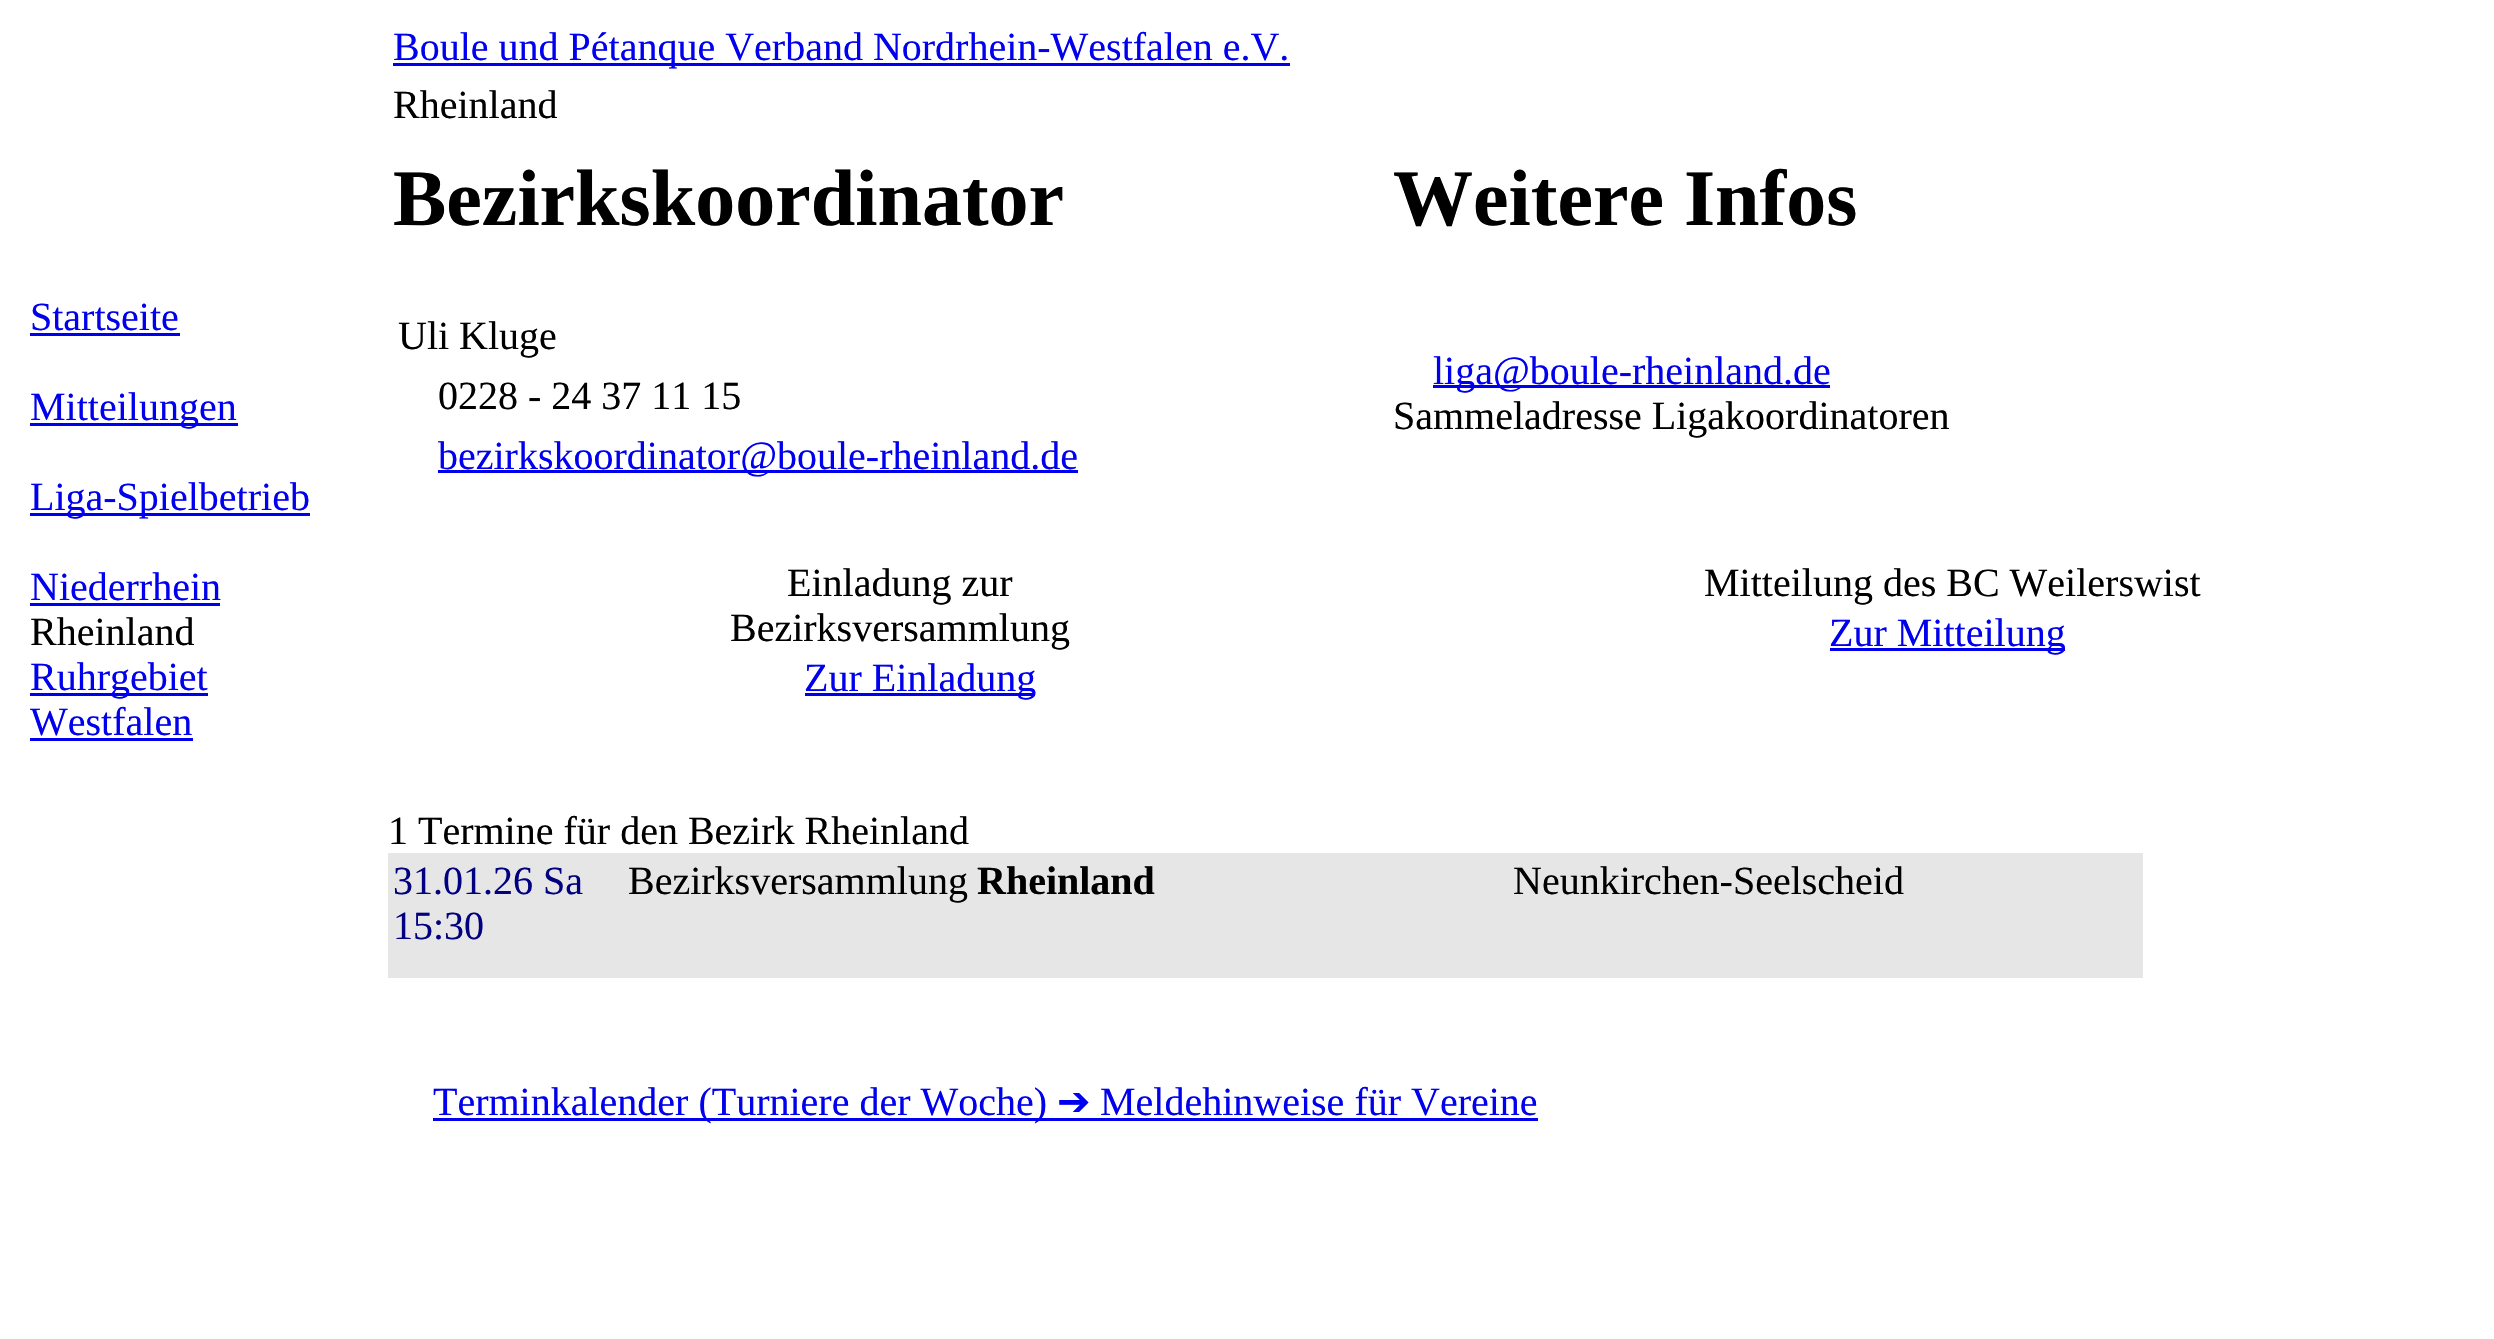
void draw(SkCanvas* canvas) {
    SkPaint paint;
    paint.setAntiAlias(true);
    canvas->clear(0xFFFFFFFF);
    SkFont font1(fontMgr->matchFamilyStyle("Liberation Serif", SkFontStyle::Normal()), 40);
    font1.setSubpixel(true);
    paint.setColor(0xFF0000EE);
    canvas->drawString("Startseite", 30, 330, font1, paint);
    canvas->drawRect(SkRect::MakeXYWH(30, 333, 150, 3), paint);
    canvas->drawRect(SkRect::MakeXYWH(30, 423, 208, 3), paint);
    canvas->drawString("Mitteilungen", 30, 420, font1, paint);
    canvas->drawRect(SkRect::MakeXYWH(30, 513, 280, 3), paint);
    canvas->drawString("Liga-Spielbetrieb", 30, 510, font1, paint);
    canvas->drawString("Niederrhein", 30, 600, font1, paint);
    canvas->drawRect(SkRect::MakeXYWH(30, 603, 190, 3), paint);
    paint.setColor(0xFF000000);
    canvas->drawString("Rheinland", 30, 645, font1, paint);
    paint.setColor(0xFF0000EE);
    canvas->drawRect(SkRect::MakeXYWH(30, 693, 178, 3), paint);
    canvas->drawString("Ruhrgebiet", 30, 690, font1, paint);
    canvas->drawString("Westfalen", 30, 735, font1, paint);
    canvas->drawRect(SkRect::MakeXYWH(30, 738, 163, 3), paint);
    canvas->drawRect(SkRect::MakeXYWH(393, 63, 897, 3), paint);
    canvas->drawString("Boule und Pétanque Verband Nordrhein-Westfalen e.V.", 393, 60, font1, paint);
    paint.setColor(0xFF000000);
    canvas->drawString("Rheinland", 393, 118, font1, paint);
    SkFont font2(fontMgr->matchFamilyStyle("Liberation Serif", SkFontStyle::Bold()), 80);
    font2.setSubpixel(true);
    canvas->drawString("Bezirkskoordinator", 393, 225, font2, paint);
    canvas->drawString("Uli Kluge", 398, 349, font1, paint);
    canvas->drawString("0228 - 24 37 11 15", 438, 409, font1, paint);
    paint.setColor(0xFF0000EE);
    canvas->drawRect(SkRect::MakeXYWH(438, 470, 640, 3), paint);
    canvas->drawString("bezirkskoordinator@boule-rheinland.de", 438, 469, font1, paint);
    paint.setColor(0xFF000000);
    canvas->drawString("Weitere Infos", 1393, 225, font2, paint);
    paint.setColor(0xFF0000EE);
    canvas->drawRect(SkRect::MakeXYWH(1433, 385, 397, 3), paint);
    canvas->drawString("liga@boule-rheinland.de", 1433, 384, font1, paint);
    paint.setColor(0xFF000000);
    canvas->drawString("Sammeladresse Ligakoordinatoren", 1393, 429, font1, paint);
    canvas->drawString("Einladung zur", 787, 596, font1, paint);
    canvas->drawString("Bezirksversammlung", 730, 641, font1, paint);
    paint.setColor(0xFF0000EE);
    canvas->drawRect(SkRect::MakeXYWH(805, 693, 230, 3), paint);
    canvas->drawString("Zur Einladung", 804, 691, font1, paint);
    paint.setColor(0xFF000000);
    canvas->drawString("Mitteilung des BC Weilerswist", 1704, 596, font1, paint);
    paint.setColor(0xFF0000EE);
    canvas->drawRect(SkRect::MakeXYWH(1830, 648, 235, 3), paint);
    canvas->drawString("Zur Mitteilung", 1829, 646, font1, paint);
    paint.setColor(0xFF000000);
    canvas->drawString("1 Termine für den Bezirk Rheinland", 388, 844, font1, paint);
    paint.setColor(0xFFE6E6E6);
    canvas->drawRect(SkRect::MakeXYWH(388, 853, 1755, 125), paint);
    paint.setColor(0xFF000080);
    canvas->drawString("31.01.26 Sa", 393, 894, font1, paint);
    canvas->drawString("15:30", 393, 939, font1, paint);
    paint.setColor(0xFF000000);
    canvas->drawString("Bezirksversammlung", 628, 894, font1, paint);
    SkFont font3(fontMgr->matchFamilyStyle("Liberation Serif", SkFontStyle::Bold()), 40);
    font3.setSubpixel(true);
    canvas->drawString("Rheinland", 977, 894, font3, paint);
    canvas->drawString("Neunkirchen-Seelscheid", 1513, 894, font1, paint);
    paint.setColor(0xFF0000EE);
    canvas->drawRect(SkRect::MakeXYWH(433, 1118, 1105, 3), paint);
    canvas->drawString("Terminkalender (Turniere der Woche)", 433, 1115, font1, paint);
    SkFont font4(fontMgr->matchFamilyStyle("DejaVu Sans", SkFontStyle::Normal()), 40);
    font4.setSubpixel(true);
    canvas->drawString("➔", 1057, 1115, font4, paint);
    canvas->drawString("Meldehinweise für Vereine", 1100, 1115, font1, paint);
}
